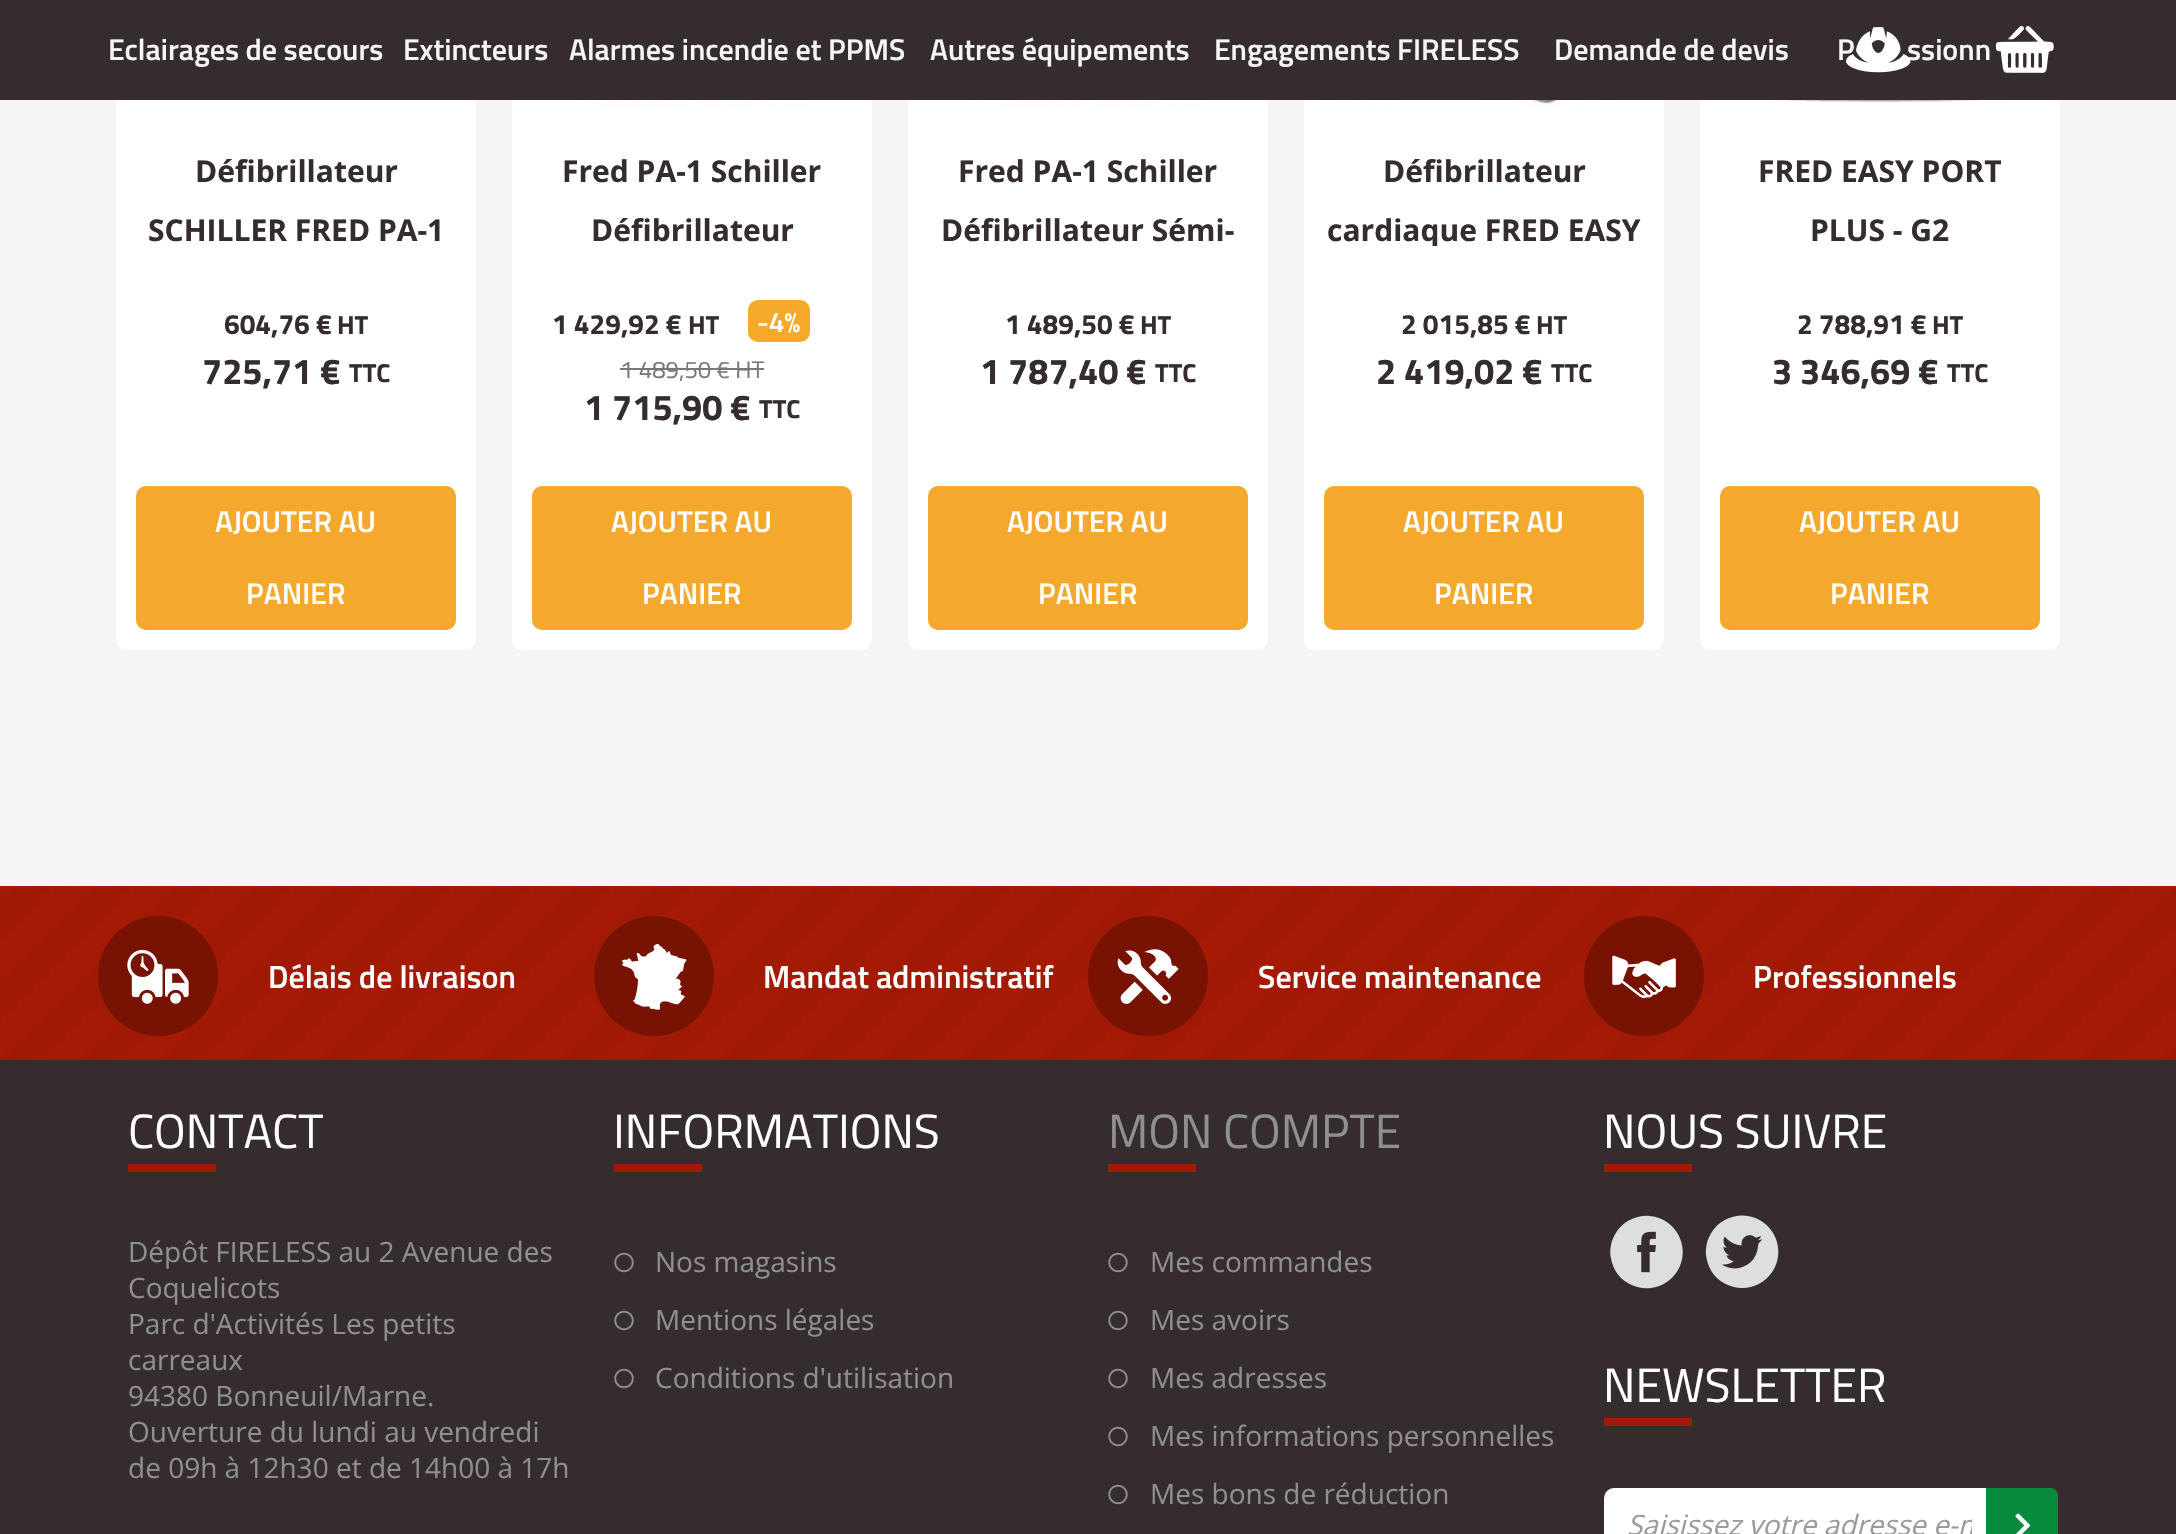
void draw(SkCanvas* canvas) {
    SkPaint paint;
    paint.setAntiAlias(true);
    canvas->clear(0xFFF5F5F5);
    paint.setColor(0xFFFFFFFF);
    canvas->drawRoundRect(SkRect::MakeXYWH(116, -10, 360, 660), 10, 10, paint);
    canvas->drawRoundRect(SkRect::MakeXYWH(512, -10, 360, 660), 10, 10, paint);
    canvas->drawRoundRect(SkRect::MakeXYWH(908, -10, 360, 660), 10, 10, paint);
    canvas->drawRoundRect(SkRect::MakeXYWH(1304, -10, 360, 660), 10, 10, paint);
    canvas->drawRoundRect(SkRect::MakeXYWH(1700, -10, 360, 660), 10, 10, paint);
    paint.setColor(0xFF352C2D);
    canvas->drawRect(SkRect::MakeXYWH(0, 0, 2176, 100), paint);
    SkFont font1(fontMgr->matchFamilyStyle("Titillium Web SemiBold", SkFontStyle(600, SkFontStyle::kNormal_Width, SkFontStyle::kUpright_Slant)), 30);
    font1.setSubpixel(true);
    paint.setColor(0xFFF5F5F5);
    canvas->drawString("P", 1837, 60, font1, paint);
    canvas->drawString("ssionn", 1907, 60, font1, paint);
    canvas->drawImageRect(SkImages::DeferredFromEncodedData(SkData::MakeFromFileName("img1.png")), SkRect::MakeXYWH(1846, 27, 65, 46), SkSamplingOptions());
    canvas->drawImageRect(SkImages::DeferredFromEncodedData(SkData::MakeFromFileName("img2.png")), SkRect::MakeXYWH(1995, 25, 59, 48), SkSamplingOptions());
    canvas->drawString("Eclairages de secours", 108, 60, font1, paint);
    canvas->drawString("Extincteurs", 403, 60, font1, paint);
    canvas->drawString("Alarmes incendie et PPMS", 569, 60, font1, paint);
    canvas->drawString("Autres équipements", 930, 60, font1, paint);
    canvas->drawString("Engagements FIRELESS", 1214, 60, font1, paint);
    canvas->drawString("Demande de devis", 1554, 60, font1, paint);
    SkFont font2(fontMgr->matchFamilyStyle("Open Sans", SkFontStyle::Bold()), 30);
    font2.setSubpixel(true);
    paint.setColor(0xFF352C2D);
    canvas->drawString("Défibrillateur", 195, 182, font2, paint);
    canvas->drawString("SCHILLER FRED PA-1", 148, 241, font2, paint);
    SkFont font3(fontMgr->matchFamilyStyle("Titillium Web", SkFontStyle::Bold()), 28);
    font3.setSubpixel(true);
    canvas->drawString("604,76 €", 224, 334, font3, paint);
    SkFont font4(fontMgr->matchFamilyStyle("Titillium Web", SkFontStyle::Bold()), 26);
    font4.setSubpixel(true);
    canvas->drawString("HT", 337, 334, font4, paint);
    SkFont font5(fontMgr->matchFamilyStyle("Titillium Web", SkFontStyle::Bold()), 36);
    font5.setSubpixel(true);
    canvas->drawString("725,71 €", 202, 384, font5, paint);
    canvas->drawString("TTC", 349, 382, font4, paint);
    paint.setColor(0xFFF4A82E);
    canvas->drawRoundRect(SkRect::MakeXYWH(136, 486, 320, 144), 10, 10, paint);
    paint.setColor(0xFFFFFFFF);
    canvas->drawString("AJOUTER AU", 215, 532, font1, paint);
    canvas->drawString("PANIER", 246, 604, font1, paint);
    canvas->drawImageRect(SkImages::DeferredFromEncodedData(SkData::MakeFromFileName("img3.png")), SkRect::MakeXYWH(573, 100, 236, 9), SkSamplingOptions());
    paint.setColor(0xFF352C2D);
    canvas->drawString("Fred PA-1 Schiller", 562, 182, font2, paint);
    canvas->drawString("Défibrillateur", 591, 241, font2, paint);
    canvas->drawString("1 429,92 €", 552, 334, font3, paint);
    canvas->drawString("HT", 688, 334, font4, paint);
    paint.setColor(0xFFF4A92A);
    canvas->drawRoundRect(SkRect::MakeXYWH(748, 300, 62, 42), 10, 10, paint);
    SkFont font6(fontMgr->matchFamilyStyle("Titillium Web SemiBold", SkFontStyle(600, SkFontStyle::kNormal_Width, SkFontStyle::kUpright_Slant)), 28);
    font6.setSubpixel(true);
    paint.setColor(0xFFFFFFFF);
    canvas->drawString("-4%", 757, 332, font6, paint);
    SkFont font7(fontMgr->matchFamilyStyle("Titillium Web", SkFontStyle::Normal()), 24);
    font7.setSubpixel(true);
    paint.setColor(0xFF777777);
    canvas->drawString("1 489,50 € HT", 620, 378, font7, paint);
    canvas->drawRect(SkRect::MakeXYWH(620, 368, 144, 2), paint);
    paint.setColor(0xFF352C2D);
    canvas->drawString("1 715,90 €", 584, 420, font5, paint);
    canvas->drawString("TTC", 759, 418, font4, paint);
    paint.setColor(0xFFF4A82E);
    canvas->drawRoundRect(SkRect::MakeXYWH(532, 486, 320, 144), 10, 10, paint);
    paint.setColor(0xFFFFFFFF);
    canvas->drawString("AJOUTER AU", 611, 532, font1, paint);
    canvas->drawString("PANIER", 642, 604, font1, paint);
    canvas->drawImageRect(SkImages::DeferredFromEncodedData(SkData::MakeFromFileName("img3.png")), SkRect::MakeXYWH(969, 100, 236, 9), SkSamplingOptions());
    paint.setColor(0xFF352C2D);
    canvas->drawString("Fred PA-1 Schiller", 958, 182, font2, paint);
    canvas->drawString("Défibrillateur Sémi-", 941, 241, font2, paint);
    canvas->drawString("1 489,50 €", 1005, 334, font3, paint);
    canvas->drawString("HT", 1140, 334, font4, paint);
    canvas->drawString("1 787,40 €", 980, 384, font5, paint);
    canvas->drawString("TTC", 1155, 382, font4, paint);
    paint.setColor(0xFFF4A82E);
    canvas->drawRoundRect(SkRect::MakeXYWH(928, 486, 320, 144), 10, 10, paint);
    paint.setColor(0xFFFFFFFF);
    canvas->drawString("AJOUTER AU", 1007, 532, font1, paint);
    canvas->drawString("PANIER", 1038, 604, font1, paint);
    canvas->drawImageRect(SkImages::DeferredFromEncodedData(SkData::MakeFromFileName("img4.png")), SkRect::MakeXYWH(1324, 100, 287, 8), SkSamplingOptions());
    paint.setColor(0xFF352C2D);
    canvas->drawString("Défibrillateur", 1383, 182, font2, paint);
    canvas->save();
    canvas->clipRect(SkRect::MakeXYWH(1324, 132, 320, 114));
    canvas->drawString("cardiaque FRED EASY", 1327, 241, font2, paint);
    canvas->restore();
    canvas->drawString("2 015,85 €", 1401, 334, font3, paint);
    canvas->drawString("HT", 1536, 334, font4, paint);
    canvas->drawString("2 419,02 €", 1376, 384, font5, paint);
    canvas->drawString("TTC", 1551, 382, font4, paint);
    paint.setColor(0xFFF4A82E);
    canvas->drawRoundRect(SkRect::MakeXYWH(1324, 486, 320, 144), 10, 10, paint);
    paint.setColor(0xFFFFFFFF);
    canvas->drawString("AJOUTER AU", 1403, 532, font1, paint);
    canvas->drawString("PANIER", 1434, 604, font1, paint);
    canvas->drawImageRect(SkImages::DeferredFromEncodedData(SkData::MakeFromFileName("img5.png")), SkRect::MakeXYWH(1743, 100, 271, 3), SkSamplingOptions());
    paint.setColor(0xFF352C2D);
    canvas->drawString("FRED EASY PORT", 1758, 182, font2, paint);
    canvas->drawString("PLUS - G2", 1810, 241, font2, paint);
    canvas->drawString("2 788,91 €", 1797, 334, font3, paint);
    canvas->drawString("HT", 1932, 334, font4, paint);
    canvas->drawString("3 346,69 €", 1772, 384, font5, paint);
    canvas->drawString("TTC", 1947, 382, font4, paint);
    paint.setColor(0xFFF4A82E);
    canvas->drawRoundRect(SkRect::MakeXYWH(1720, 486, 320, 144), 10, 10, paint);
    paint.setColor(0xFFFFFFFF);
    canvas->drawString("AJOUTER AU", 1799, 532, font1, paint);
    canvas->drawString("PANIER", 1830, 604, font1, paint);
    paint.setColor(0xFF352C2D);
    canvas->drawRect(SkRect::MakeXYWH(0, 1060, 2176, 474), paint);
    canvas->drawImageRect(SkImages::DeferredFromEncodedData(SkData::MakeFromFileName("img6.png")), SkRect::MakeXYWH(0, 886, 2176, 174), SkSamplingOptions());
    paint.setColor(0xFF781203);
    canvas->drawCircle(158, 976, 60, paint);
    canvas->drawImageRect(SkImages::DeferredFromEncodedData(SkData::MakeFromFileName("img7.png")), SkRect::MakeXYWH(127, 949, 62, 55), SkSamplingOptions());
    SkFont font8(fontMgr->matchFamilyStyle("Titillium Web SemiBold", SkFontStyle(600, SkFontStyle::kNormal_Width, SkFontStyle::kUpright_Slant)), 32);
    font8.setSubpixel(true);
    paint.setColor(0xFFFFFFFF);
    canvas->drawString("Délais de livraison", 268, 988, font8, paint);
    paint.setColor(0xFF781203);
    canvas->drawCircle(654, 976, 60, paint);
    canvas->drawImageRect(SkImages::DeferredFromEncodedData(SkData::MakeFromFileName("img8.png")), SkRect::MakeXYWH(622, 944, 65, 66), SkSamplingOptions());
    paint.setColor(0xFFFFFFFF);
    canvas->drawString("Mandat administratif", 763, 988, font8, paint);
    paint.setColor(0xFF781203);
    canvas->drawCircle(1148, 976, 60, paint);
    canvas->drawImageRect(SkImages::DeferredFromEncodedData(SkData::MakeFromFileName("img9.png")), SkRect::MakeXYWH(1117, 949, 62, 55), SkSamplingOptions());
    paint.setColor(0xFFFFFFFF);
    canvas->drawString("Service maintenance", 1258, 988, font8, paint);
    paint.setColor(0xFF781203);
    canvas->drawCircle(1644, 976, 60, paint);
    canvas->drawImageRect(SkImages::DeferredFromEncodedData(SkData::MakeFromFileName("img10.png")), SkRect::MakeXYWH(1612, 955, 64, 44), SkSamplingOptions());
    paint.setColor(0xFFFFFFFF);
    canvas->drawString("Professionnels", 1753, 988, font8, paint);
    SkFont font9(fontMgr->matchFamilyStyle("Titillium Web", SkFontStyle::Normal()), 48);
    font9.setSubpixel(true);
    canvas->drawString("CONTACT", 128, 1148, font9, paint);
    paint.setColor(0xFFA21A04);
    canvas->drawRect(SkRect::MakeXYWH(128, 1164, 88, 8), paint);
    SkFont font10(fontMgr->matchFamilyStyle("Open Sans", SkFontStyle::Normal()), 28);
    font10.setSubpixel(true);
    paint.setColor(0xFF8F8F8F);
    canvas->drawString("Dépôt FIRELESS au 2 Avenue des", 128, 1262, font10, paint);
    canvas->drawString("Coquelicots", 128, 1298, font10, paint);
    canvas->drawString("Parc d'Activités Les petits", 128, 1334, font10, paint);
    canvas->drawString("carreaux", 128, 1370, font10, paint);
    canvas->drawString("94380 Bonneuil/Marne.", 128, 1406, font10, paint);
    canvas->drawString("Ouverture du lundi au vendredi", 128, 1442, font10, paint);
    canvas->drawString("de 09h à 12h30 et de 14h00 à 17h", 128, 1478, font10, paint);
    paint.setColor(0xFFFFFFFF);
    canvas->drawString("INFORMATIONS", 613, 1148, font9, paint);
    paint.setColor(0xFFA21A04);
    canvas->drawRect(SkRect::MakeXYWH(614, 1164, 88, 8), paint);
    canvas->drawImageRect(SkImages::DeferredFromEncodedData(SkData::MakeFromFileName("img11.png")), SkRect::MakeXYWH(614, 1252, 20, 21), SkSamplingOptions());
    paint.setColor(0xFF8F8F8F);
    canvas->drawString("Nos magasins", 655, 1272, font10, paint);
    canvas->drawImageRect(SkImages::DeferredFromEncodedData(SkData::MakeFromFileName("img11.png")), SkRect::MakeXYWH(614, 1310, 20, 21), SkSamplingOptions());
    canvas->drawString("Mentions légales", 655, 1330, font10, paint);
    canvas->drawImageRect(SkImages::DeferredFromEncodedData(SkData::MakeFromFileName("img11.png")), SkRect::MakeXYWH(614, 1368, 20, 21), SkSamplingOptions());
    canvas->drawString("Conditions d'utilisation", 655, 1388, font10, paint);
    canvas->drawString("MON COMPTE", 1108, 1148, font9, paint);
    paint.setColor(0xFFA21A04);
    canvas->drawRect(SkRect::MakeXYWH(1108, 1164, 88, 8), paint);
    canvas->drawImageRect(SkImages::DeferredFromEncodedData(SkData::MakeFromFileName("img11.png")), SkRect::MakeXYWH(1108, 1252, 20, 21), SkSamplingOptions());
    paint.setColor(0xFF8F8F8F);
    canvas->drawString("Mes commandes", 1150, 1272, font10, paint);
    canvas->drawImageRect(SkImages::DeferredFromEncodedData(SkData::MakeFromFileName("img11.png")), SkRect::MakeXYWH(1108, 1310, 20, 21), SkSamplingOptions());
    canvas->drawString("Mes avoirs", 1150, 1330, font10, paint);
    canvas->drawImageRect(SkImages::DeferredFromEncodedData(SkData::MakeFromFileName("img11.png")), SkRect::MakeXYWH(1108, 1368, 20, 21), SkSamplingOptions());
    canvas->drawString("Mes adresses", 1150, 1388, font10, paint);
    canvas->drawImageRect(SkImages::DeferredFromEncodedData(SkData::MakeFromFileName("img11.png")), SkRect::MakeXYWH(1108, 1426, 20, 21), SkSamplingOptions());
    canvas->drawString("Mes informations personnelles", 1150, 1446, font10, paint);
    canvas->drawImageRect(SkImages::DeferredFromEncodedData(SkData::MakeFromFileName("img11.png")), SkRect::MakeXYWH(1108, 1484, 20, 21), SkSamplingOptions());
    canvas->drawString("Mes bons de réduction", 1150, 1504, font10, paint);
    paint.setColor(0xFFFFFFFF);
    canvas->drawString("NOUS SUIVRE", 1603, 1148, font9, paint);
    paint.setColor(0xFFA21A04);
    canvas->drawRect(SkRect::MakeXYWH(1604, 1164, 88, 8), paint);
    canvas->drawImageRect(SkImages::DeferredFromEncodedData(SkData::MakeFromFileName("img12.png")), SkRect::MakeXYWH(1610, 1215, 73, 74), SkSamplingOptions());
    canvas->drawImageRect(SkImages::DeferredFromEncodedData(SkData::MakeFromFileName("img13.png")), SkRect::MakeXYWH(1705, 1215, 74, 73), SkSamplingOptions());
    paint.setColor(0xFFFFFFFF);
    canvas->drawString("NEWSLETTER", 1603, 1402, font9, paint);
    paint.setColor(0xFFA21A04);
    canvas->drawRect(SkRect::MakeXYWH(1604, 1418, 88, 8), paint);
    paint.setColor(0xFFFFFFFF);
    canvas->drawRoundRect(SkRect::MakeXYWH(1604, 1488, 454, 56), 10, 10, paint);
    canvas->save();
    canvas->clipRect(SkRect::MakeXYWH(1628, 1506, 344, 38));
    SkFont font11(fontMgr->matchFamilyStyle("Open Sans", SkFontStyle::Italic()), 28);
    font11.setSubpixel(true);
    paint.setColor(0xFF9C9B9B);
    canvas->drawString("Saisissez votre adresse e-m", 1627, 1535, font11, paint);
    canvas->restore();
    paint.setColor(0xFF058B3B);
    canvas->drawPath(SkPathBuilder().moveTo(1986, 1488).lineTo(2050, 1488).cubicTo(2054.5f, 1488, 2058, 1491.5f, 2058, 1496).lineTo(2058, 1534).cubicTo(2058, 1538.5f, 2054.5f, 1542, 2050, 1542).lineTo(1986, 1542).close().detach(), paint);
    canvas->drawImageRect(SkImages::DeferredFromEncodedData(SkData::MakeFromFileName("img14.png")), SkRect::MakeXYWH(2015, 1513, 15, 21), SkSamplingOptions());
}
